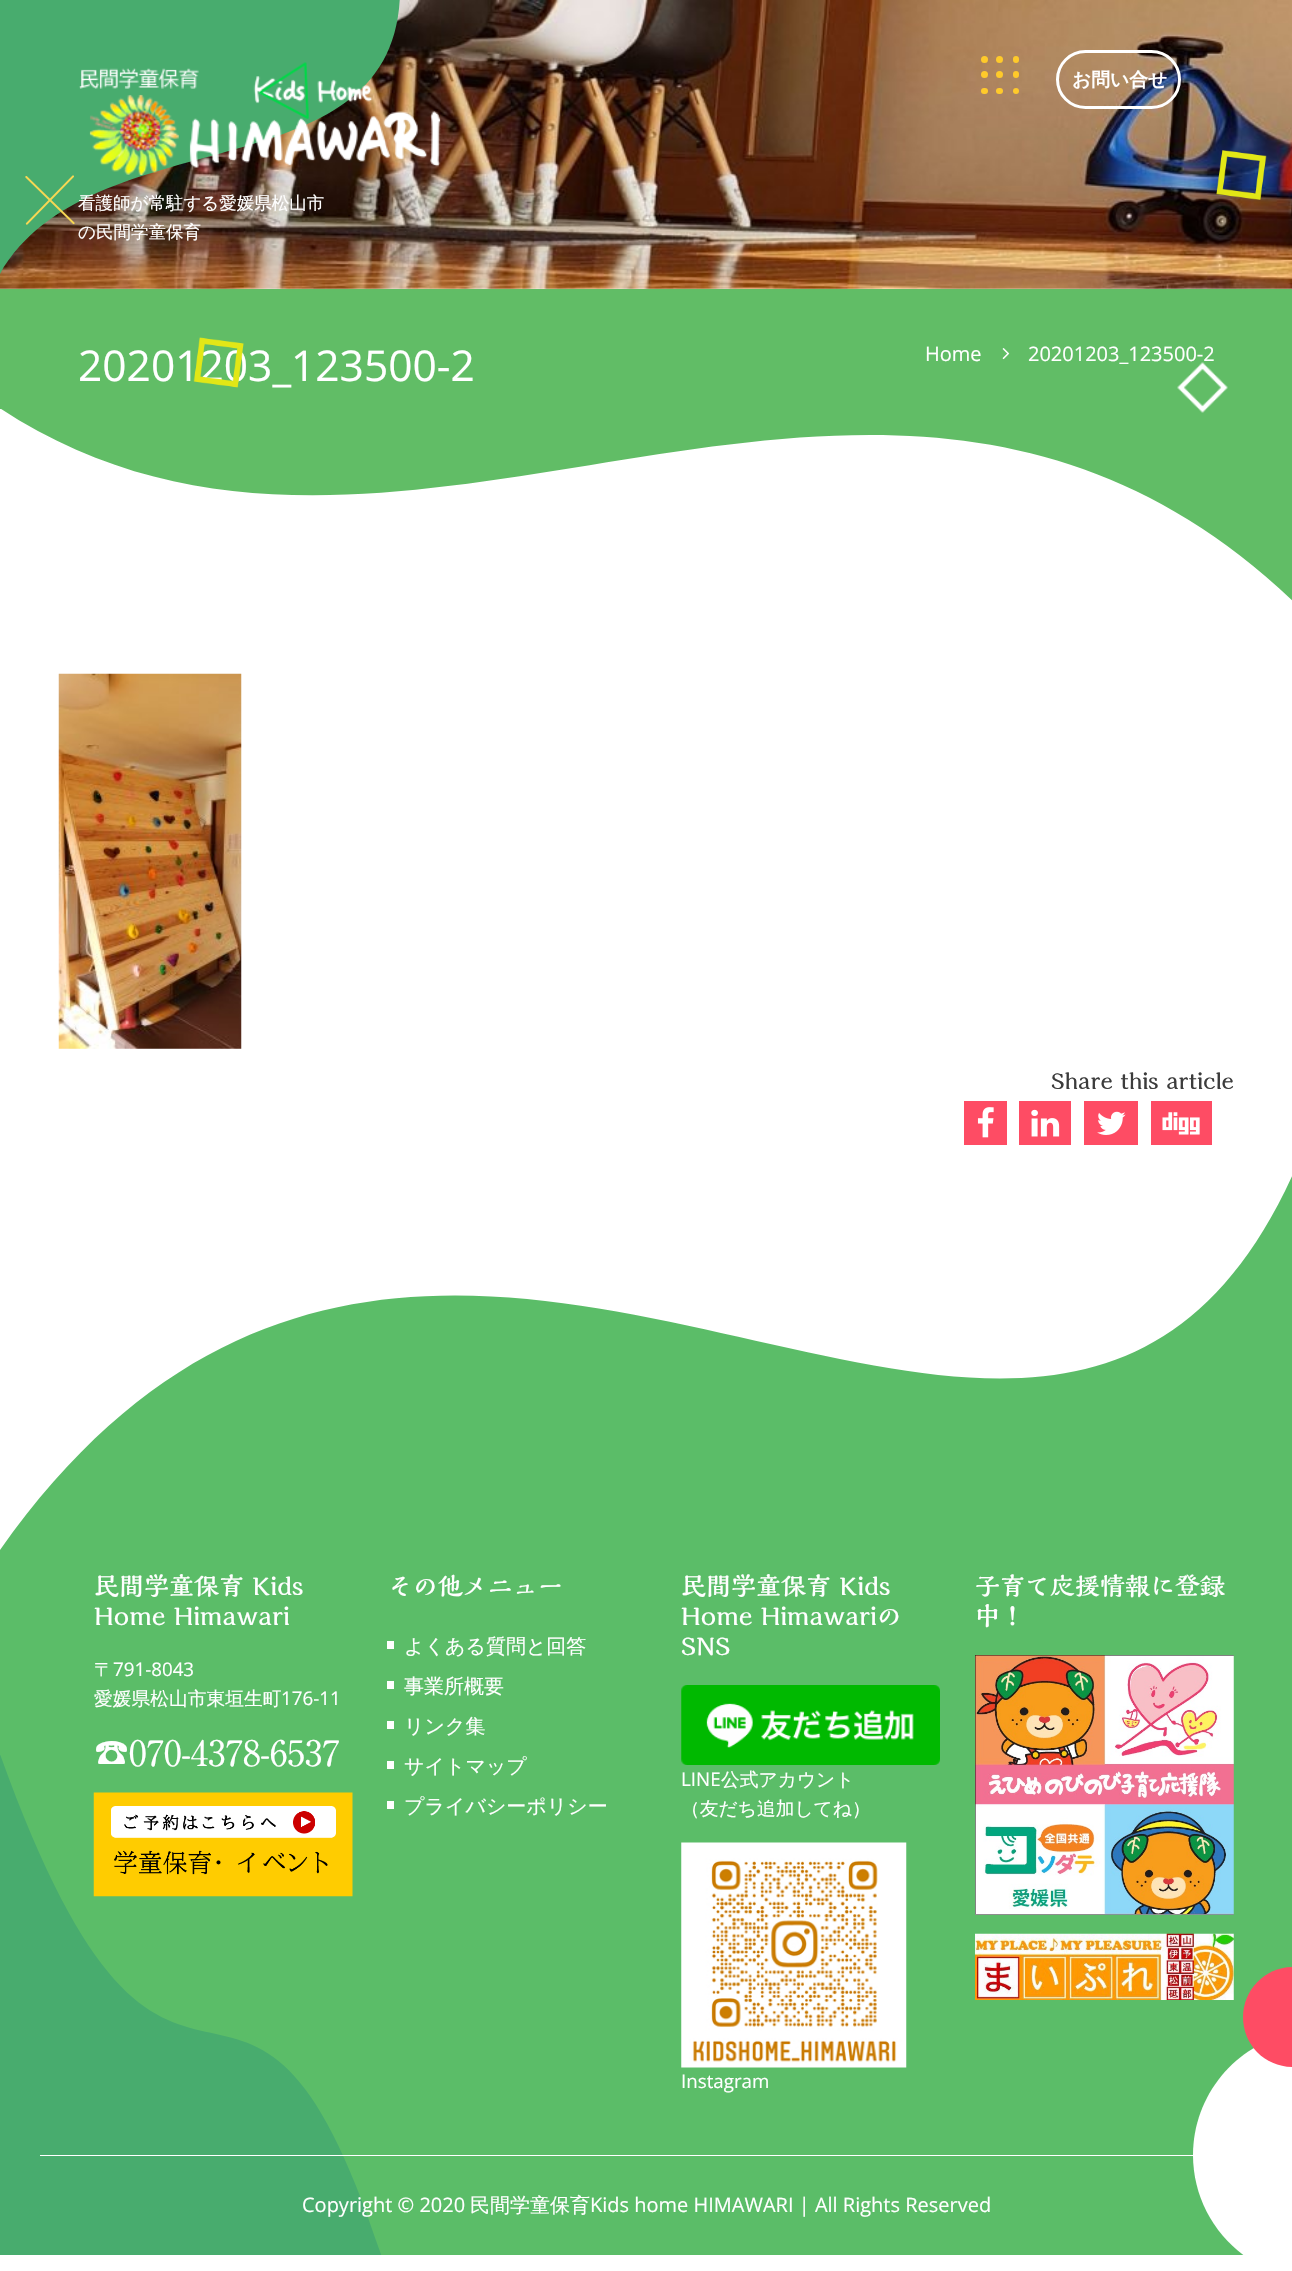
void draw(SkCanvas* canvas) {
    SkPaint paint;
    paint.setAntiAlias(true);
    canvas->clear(0xFFFFFFFF);
    canvas->drawImageRect(SkImages::DeferredFromEncodedData(SkData::MakeFromFileName("img1.png")), SkRect::MakeXYWH(0, 0, 1292, 289), SkSamplingOptions());
    paint.setColor(0xFF48AC6E);
    canvas->drawPath(SkPathBuilder().moveTo(400, -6).cubicTo(394, 196, 92, 115, 0, 274).lineTo(-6, 263).lineTo(0, 0).close().detach(), paint);
    paint.setColor(0xFFFFCA2A);
    canvas->drawCircle(984.5f, 59.5f, 3.5f, paint);
    canvas->drawCircle(999.5f, 59.5f, 3.5f, paint);
    canvas->drawRoundRect(SkRect::MakeXYWH(1013, 56, 6, 7), 3, 3, paint);
    canvas->drawCircle(984.5f, 74.5f, 3.5f, paint);
    canvas->drawCircle(999.5f, 74.5f, 3.5f, paint);
    canvas->drawRoundRect(SkRect::MakeXYWH(1013, 71, 6, 7), 3, 3, paint);
    canvas->drawRoundRect(SkRect::MakeXYWH(981, 88, 7, 6), 3, 3, paint);
    canvas->drawRoundRect(SkRect::MakeXYWH(996, 88, 7, 6), 3, 3, paint);
    canvas->drawCircle(1016, 91, 3, paint);
    paint.setStyle(SkPaint::kStroke_Style);
    paint.setStrokeWidth(3);
    paint.setColor(0xFFFFFFFF);
    canvas->drawRoundRect(SkRect::MakeXYWH(1057.5f, 51.5f, 122, 56), 28, 28, paint);
    SkFont font1(fontMgr->matchFamilyStyle("WenQuanYi Zen Hei", SkFontStyle::Bold()), 18.75f);
    font1.setSubpixel(true);
    paint.setStyle(SkPaint::kFill_Style);
    canvas->drawString("お問い合せ", 1072, 86, font1, paint);
    canvas->drawImageRect(SkImages::DeferredFromEncodedData(SkData::MakeFromFileName("img2.png")), SkRect::MakeXYWH(79, 68, 362, 107), SkSamplingOptions());
    SkFont font2(fontMgr->matchFamilyStyle("WenQuanYi Zen Hei", SkFontStyle(500, SkFontStyle::kNormal_Width, SkFontStyle::kUpright_Slant)), 17.5f);
    font2.setSubpixel(true);
    canvas->drawString("看護師が常駐する愛媛県松山市", 78, 209, font2, paint);
    canvas->drawString("の民間学童保育", 78, 238, font2, paint);
    paint.setColor(0xFF61BD66);
    canvas->drawRect(SkRect::MakeXYWH(0, 289, 1292, 120), paint);
    canvas->drawImageRect(SkImages::DeferredFromEncodedData(SkData::MakeFromFileName("img3.png")), SkRect::MakeXYWH(258, 62, 51, 57), SkSamplingOptions());
    canvas->drawImageRect(SkImages::DeferredFromEncodedData(SkData::MakeFromFileName("img4.png")), SkRect::MakeXYWH(25, 175, 50, 50), SkSamplingOptions());
    canvas->drawImageRect(SkImages::DeferredFromEncodedData(SkData::MakeFromFileName("img5.png")), SkRect::MakeXYWH(1216, 150, 51, 50), SkSamplingOptions());
    SkFont font3(fontMgr->matchFamilyStyle("Open Sans", SkFontStyle::Normal()), 42.5f);
    font3.setSubpixel(true);
    paint.setColor(0xFFFFFFFF);
    canvas->drawString("20201203_123500-2", 78, 381, font3, paint);
    canvas->drawImageRect(SkImages::DeferredFromEncodedData(SkData::MakeFromFileName("img6.png")), SkRect::MakeXYWH(193, 337, 51, 51), SkSamplingOptions());
    SkFont font4(fontMgr->matchFamilyStyle("Open Sans", SkFontStyle::Normal()), 20);
    font4.setSubpixel(true);
    canvas->drawString("Home", 925, 361, font4, paint);
    canvas->drawImageRect(SkImages::DeferredFromEncodedData(SkData::MakeFromFileName("img7.png")), SkRect::MakeXYWH(1002, 348, 8, 12), SkSamplingOptions());
    canvas->drawString("20201203_123500-2", 1028, 361, font4, paint);
    paint.setColor(0xFF61BD66);
    canvas->drawPath(SkPathBuilder().moveTo(-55, 367).cubicTo(379, 734, 902, 142, 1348, 659).lineTo(1292, 409).lineTo(0, 409).close().detach(), paint);
    canvas->drawImageRect(SkImages::DeferredFromEncodedData(SkData::MakeFromFileName("img8.png")), SkRect::MakeXYWH(1177, 362, 51, 51), SkSamplingOptions());
    canvas->drawImageRect(SkImages::DeferredFromEncodedData(SkData::MakeFromFileName("img9.png")), SkRect::MakeXYWH(58, 673, 184, 376), SkSamplingOptions());
    SkFont font5(fontMgr->matchFamilyStyle("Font", SkFontStyle(600, SkFontStyle::kNormal_Width, SkFontStyle::kUpright_Slant)), 22.5f);
    font5.setSubpixel(true);
    paint.setColor(0xFF3C3C3C);
    canvas->drawString("Share this article", 1051, 1089, font5, paint);
    paint.setColor(0xFFFE4C64);
    canvas->drawRect(SkRect::MakeXYWH(964, 1101, 43, 44), paint);
    canvas->drawImageRect(SkImages::DeferredFromEncodedData(SkData::MakeFromFileName("img10.png")), SkRect::MakeXYWH(977, 1107, 17, 31), SkSamplingOptions());
    canvas->drawRect(SkRect::MakeXYWH(1019, 1101, 52, 44), paint);
    canvas->drawImageRect(SkImages::DeferredFromEncodedData(SkData::MakeFromFileName("img11.png")), SkRect::MakeXYWH(1031, 1109, 29, 28), SkSamplingOptions());
    canvas->drawRect(SkRect::MakeXYWH(1084, 1101, 54, 44), paint);
    canvas->drawImageRect(SkImages::DeferredFromEncodedData(SkData::MakeFromFileName("img12.png")), SkRect::MakeXYWH(1097, 1111, 29, 24), SkSamplingOptions());
    canvas->drawRect(SkRect::MakeXYWH(1151, 1101, 61, 44), paint);
    canvas->drawImageRect(SkImages::DeferredFromEncodedData(SkData::MakeFromFileName("img13.png")), SkRect::MakeXYWH(1162, 1112, 38, 23), SkSamplingOptions());
    paint.setColor(0xFF5BBD68);
    canvas->drawPath(SkPathBuilder().moveTo(-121, 1768).cubicTo(408, 577, 1282, 2210, 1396, 663).lineTo(1292, 1550).lineTo(474, 1564).close().detach(), paint);
    canvas->drawRect(SkRect::MakeXYWH(0, 1550, 1292, 705), paint);
    SkFont font6(fontMgr->matchFamilyStyle("Font", SkFontStyle(600, SkFontStyle::kNormal_Width, SkFontStyle::kUpright_Slant)), 25);
    font6.setSubpixel(true);
    paint.setColor(0xFFFFFFFF);
    canvas->drawString("民間学童保育 Kids", 94, 1595, font6, paint);
    canvas->drawString("Home Himawari", 94, 1625, font6, paint);
    SkFont font7(fontMgr->matchFamilyStyle("WenQuanYi Zen Hei", SkFontStyle(500, SkFontStyle::kNormal_Width, SkFontStyle::kUpright_Slant)), 18.75f);
    font7.setSubpixel(true);
    canvas->drawString("〒", 94, 1676, font7, paint);
    SkFont font8(fontMgr->matchFamilyStyle("Open Sans", SkFontStyle::Normal()), 18.75f);
    font8.setSubpixel(true);
    canvas->drawString("791-8043", 113, 1676, font8, paint);
    canvas->drawString("愛媛県松山市東垣生町", 94, 1705, font7, paint);
    canvas->drawString("176-11", 281, 1705, font8, paint);
    canvas->save();
    canvas->clipRect(SkRect::MakeXYWH(0, 1755, 1009, 500));
    paint.setColor(0xFF48AC6E);
    canvas->drawPath(SkPathBuilder().moveTo(-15, 1711).cubicTo(175, 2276, 246, 1809, 391, 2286).lineTo(287, 2260).lineTo(0, 2255).close().detach(), paint);
    canvas->restore();
    SkFont font9(fontMgr->matchFamilyStyle("Font", SkFontStyle::Normal()), 35);
    font9.setSubpixel(true);
    paint.setColor(0xFFFFFFFF);
    canvas->drawString("☎070-4378-6537", 94, 1766, font9, paint);
    canvas->drawImageRect(SkImages::DeferredFromEncodedData(SkData::MakeFromFileName("img14.png")), SkRect::MakeXYWH(93, 1792, 260, 105), SkSamplingOptions());
    canvas->drawString("その他メニュー", 388, 1595, font6, paint);
    canvas->drawRect(SkRect::MakeXYWH(387, 1641, 7, 8), paint);
    SkFont font10(fontMgr->matchFamilyStyle("WenQuanYi Zen Hei", SkFontStyle(500, SkFontStyle::kNormal_Width, SkFontStyle::kUpright_Slant)), 20);
    font10.setSubpixel(true);
    canvas->drawString("よくある質問と回答", 404, 1653, font10, paint);
    canvas->drawRect(SkRect::MakeXYWH(387, 1681, 7, 8), paint);
    canvas->drawString("事業所概要", 404, 1693, font10, paint);
    canvas->drawRect(SkRect::MakeXYWH(387, 1721, 7, 8), paint);
    canvas->drawString("リンク集", 404, 1733, font10, paint);
    canvas->drawRect(SkRect::MakeXYWH(387, 1761, 7, 8), paint);
    canvas->drawString("サイトマップ", 404, 1773, font10, paint);
    canvas->drawRect(SkRect::MakeXYWH(387, 1801, 7, 8), paint);
    canvas->drawString("プライバシーポリシー", 404, 1813, font10, paint);
    canvas->drawString("民間学童保育 Kids", 681, 1595, font6, paint);
    canvas->drawString("Home Himawariの", 681, 1625, font6, paint);
    canvas->drawString("SNS", 681, 1655, font6, paint);
    canvas->drawImageRect(SkImages::DeferredFromEncodedData(SkData::MakeFromFileName("img15.png")), SkRect::MakeXYWH(681, 1685, 259, 80), SkSamplingOptions());
    canvas->drawString("LINE", 681, 1786, font8, paint);
    canvas->drawString("公式アカウント", 721, 1786, font7, paint);
    canvas->drawString("（友だち追加してね）", 681, 1815, font7, paint);
    canvas->drawImageRect(SkImages::DeferredFromEncodedData(SkData::MakeFromFileName("img16.png")), SkRect::MakeXYWH(681, 1842, 226, 226), SkSamplingOptions());
    canvas->drawString("Instagram", 681, 2088, font8, paint);
    canvas->drawString("子育て応援情報に登録", 975, 1595, font6, paint);
    canvas->drawString("中！", 975, 1625, font6, paint);
    canvas->drawImageRect(SkImages::DeferredFromEncodedData(SkData::MakeFromFileName("img17.png")), SkRect::MakeXYWH(975, 1655, 259, 260), SkSamplingOptions());
    canvas->drawImageRect(SkImages::DeferredFromEncodedData(SkData::MakeFromFileName("img18.png")), SkRect::MakeXYWH(975, 1933, 259, 67), SkSamplingOptions());
    canvas->save();
    canvas->clipRect(SkRect::MakeXYWH(0, 1550, 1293, 705));
    canvas->drawPath(SkPathBuilder().moveTo(1193, 2155).cubicTo(1193, 2095, 1236, 2044, 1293, 2033).lineTo(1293, 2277).cubicTo(1236, 2266, 1193, 2215, 1193, 2155).close().detach(), paint);
    canvas->restore();
    paint.setColor(0xFFFE4C64);
    canvas->drawPath(SkPathBuilder().moveTo(1243, 2017).cubicTo(1243, 1990, 1265, 1967, 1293, 1967).lineTo(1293, 2067).cubicTo(1265, 2067, 1243, 2045, 1243, 2017).close().detach(), paint);
    paint.setColor(0xFFFFFFFF);
    canvas->drawRect(SkRect::MakeXYWH(40, 2155, 1153, 1), paint);
    canvas->drawString("Copyright © 2020", 302, 2212, font4, paint);
    canvas->drawString("民間学童保育", 470, 2212, font10, paint);
    canvas->drawString("Kids home HIMAWARI | All Rights Reserved", 590, 2212, font4, paint);
}
